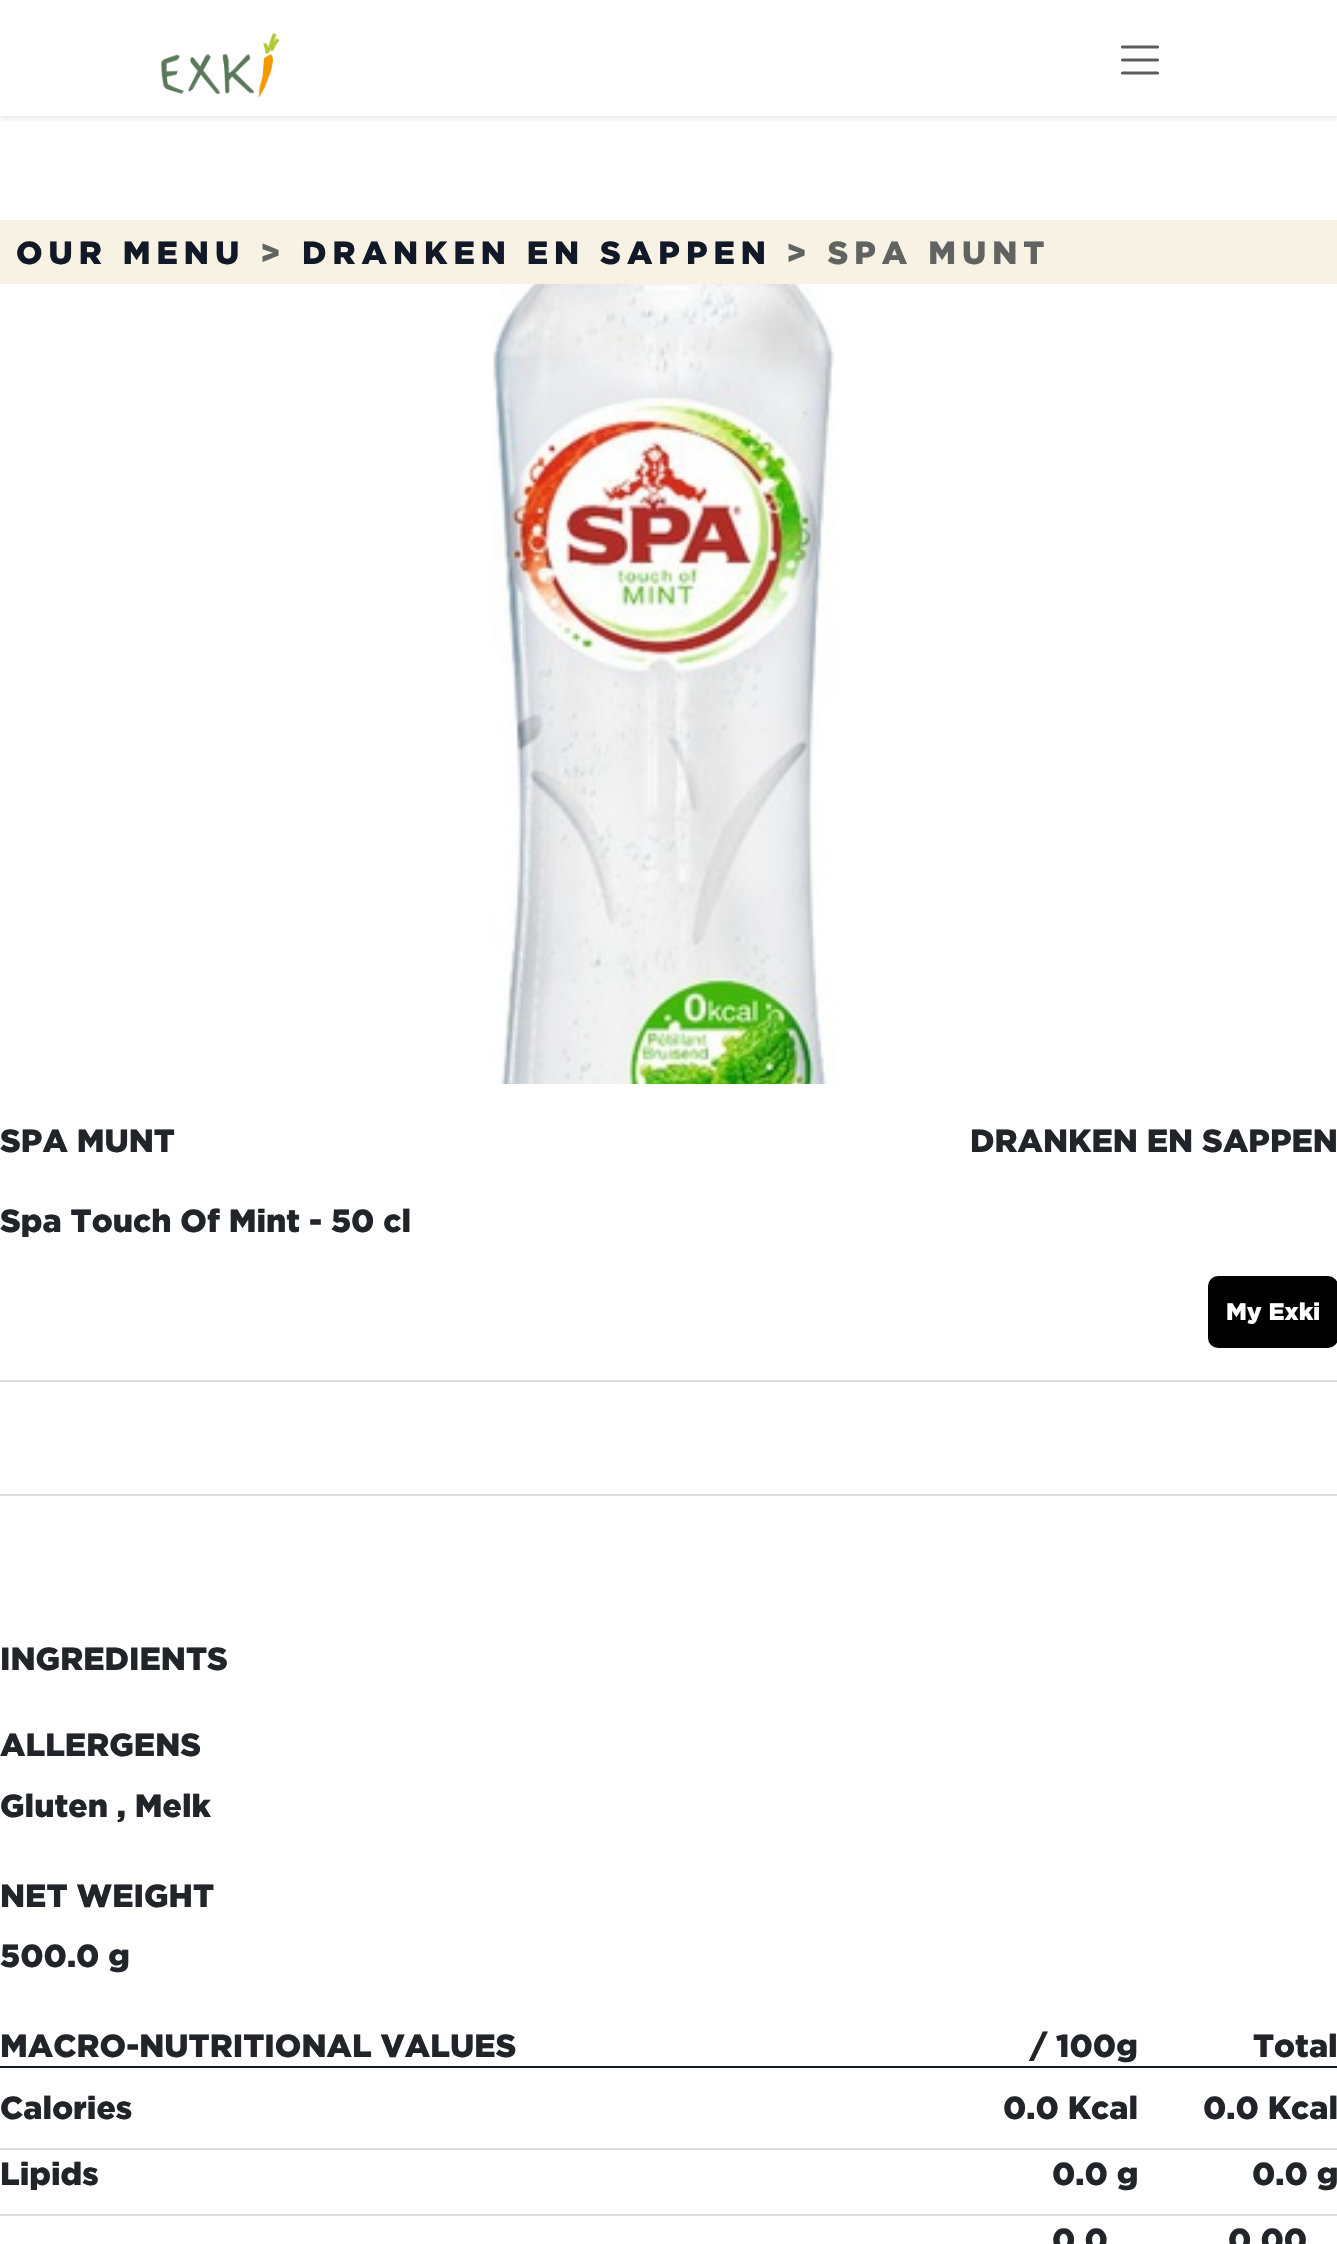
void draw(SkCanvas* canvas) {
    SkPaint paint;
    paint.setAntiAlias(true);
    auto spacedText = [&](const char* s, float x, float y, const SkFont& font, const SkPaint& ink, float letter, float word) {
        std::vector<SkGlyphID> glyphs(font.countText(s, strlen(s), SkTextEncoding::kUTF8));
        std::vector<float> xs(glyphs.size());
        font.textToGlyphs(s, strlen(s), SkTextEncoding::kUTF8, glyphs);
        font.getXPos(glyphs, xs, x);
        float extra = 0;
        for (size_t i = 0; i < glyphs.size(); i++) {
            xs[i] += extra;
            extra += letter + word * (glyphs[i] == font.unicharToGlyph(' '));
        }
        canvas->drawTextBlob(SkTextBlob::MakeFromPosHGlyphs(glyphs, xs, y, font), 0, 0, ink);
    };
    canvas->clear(0xFFFFFFFF);
    canvas->save();
    canvas->clipRect(SkRect::MakeXYWH(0, 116, 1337, 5));
    paint.setColor(0x1A000000);
    paint.setMaskFilter(SkMaskFilter::MakeBlur(kNormal_SkBlurStyle, 3));
    canvas->drawRect(SkRect::MakeXYWH(0, 2, 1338, 116), paint);
    paint.setMaskFilter(nullptr);
    canvas->restore();
    canvas->drawImageRect(SkImages::DeferredFromEncodedData(SkData::MakeFromFileName("img1.png")), SkRect::MakeXYWH(160, 33, 120, 65), SkSamplingOptions());
    paint.setStyle(SkPaint::kStroke_Style);
    paint.setStrokeWidth(3.2f);
    paint.setStrokeCap(SkPaint::kRound_Cap);
    paint.setColor(0xFF595C5F);
    canvas->drawPath(SkPathBuilder().moveTo(1122.5f, 47).lineTo(1157.5f, 47).moveTo(1122.5f, 60).lineTo(1157.5f, 60).moveTo(1122.5f, 73).lineTo(1157.5f, 73).detach(), paint);
    paint.setStyle(SkPaint::kFill_Style);
    paint.setColor(0xFFF7F2E4);
    canvas->drawRect(SkRect::MakeXYWH(0, 220, 1337, 64), paint);
    SkFont font1(fontMgr->matchFamilyStyle("Gotham", SkFontStyle(900, SkFontStyle::kNormal_Width, SkFontStyle::kUpright_Slant)), 32);
    font1.setSubpixel(true);
    paint.setColor(0xFF111827);
    spacedText("OUR MENU", 16, 264, font1, paint, 6, 0);
    paint.setColor(0xFF616361);
    spacedText(">", 260, 264, font1, paint, 6, 0);
    paint.setColor(0xFF111827);
    spacedText("DRANKEN EN SAPPEN", 302, 264, font1, paint, 6, 0);
    paint.setColor(0xFF616361);
    spacedText("> SPA MUNT", 786, 264, font1, paint, 6, 0);
    canvas->drawImageRect(SkImages::DeferredFromEncodedData(SkData::MakeFromFileName("img2.png")), SkRect::MakeXYWH(490, 284, 346, 800), SkSamplingOptions());
    paint.setColor(0xFF212529);
    canvas->drawString("SPA MUNT", 0, 1152, font1, paint);
    canvas->drawString("DRANKEN EN SAPPEN", 970, 1152, font1, paint);
    canvas->drawString("Spa Touch Of Mint - 50 cl", 0, 1232, font1, paint);
    paint.setColor(0xFF000000);
    canvas->drawRoundRect(SkRect::MakeXYWH(1209, 1277, 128, 70), 9, 9, paint);
    paint.setStyle(SkPaint::kStroke_Style);
    paint.setStrokeWidth(2);
    paint.setStrokeCap(SkPaint::kButt_Cap);
    canvas->drawRoundRect(SkRect::MakeXYWH(1209, 1277, 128, 70), 9, 9, paint);
    SkFont font2(fontMgr->matchFamilyStyle("Gotham", SkFontStyle(900, SkFontStyle::kNormal_Width, SkFontStyle::kUpright_Slant)), 24);
    font2.setSubpixel(true);
    paint.setStyle(SkPaint::kFill_Style);
    paint.setColor(0xFFFFFFFF);
    canvas->drawString("My Exki", 1226, 1320, font2, paint);
    paint.setColor(0xFFDEDEDF);
    canvas->drawRect(SkRect::MakeXYWH(0, 1380, 1337, 2), paint);
    canvas->drawRect(SkRect::MakeXYWH(0, 1494, 1337, 2), paint);
    paint.setColor(0xFF212529);
    canvas->drawString("INGREDIENTS", 0, 1670, font1, paint);
    canvas->drawString("ALLERGENS", 0, 1756, font1, paint);
    canvas->drawString("Gluten , Melk", 0, 1817, font1, paint);
    canvas->drawString("NET WEIGHT", 0, 1907, font1, paint);
    canvas->drawString("500.0 g", 0, 1967, font1, paint);
    paint.setColor(0xFF111827);
    canvas->drawRect(SkRect::MakeXYWH(0, 2066, 1337, 2), paint);
    paint.setColor(0xFF212529);
    canvas->drawString("MACRO-NUTRITIONAL VALUES", 0, 2057, font1, paint);
    canvas->drawString("/ 100g", 1030, 2057, font1, paint);
    canvas->drawString("Total", 1253, 2057, font1, paint);
    paint.setColor(0xFFDEDEDF);
    canvas->drawRect(SkRect::MakeXYWH(0, 2148, 1337, 2), paint);
    paint.setColor(0xFF212529);
    canvas->drawString("Calories", 0, 2119, font1, paint);
    canvas->drawString("0.0 Kcal", 1003, 2119, font1, paint);
    canvas->drawString("0.0 Kcal", 1203, 2119, font1, paint);
    paint.setColor(0xFFDEDEDF);
    canvas->drawRect(SkRect::MakeXYWH(0, 2214, 1337, 2), paint);
    paint.setColor(0xFF212529);
    canvas->drawString("Lipids", 0, 2185, font1, paint);
    canvas->drawString("0.0 g", 1052, 2185, font1, paint);
    canvas->drawString("0.0 g", 1252, 2185, font1, paint);
    canvas->drawString("0.0", 1052, 2251, font1, paint);
    canvas->drawString("0.00", 1228, 2251, font1, paint);
}
